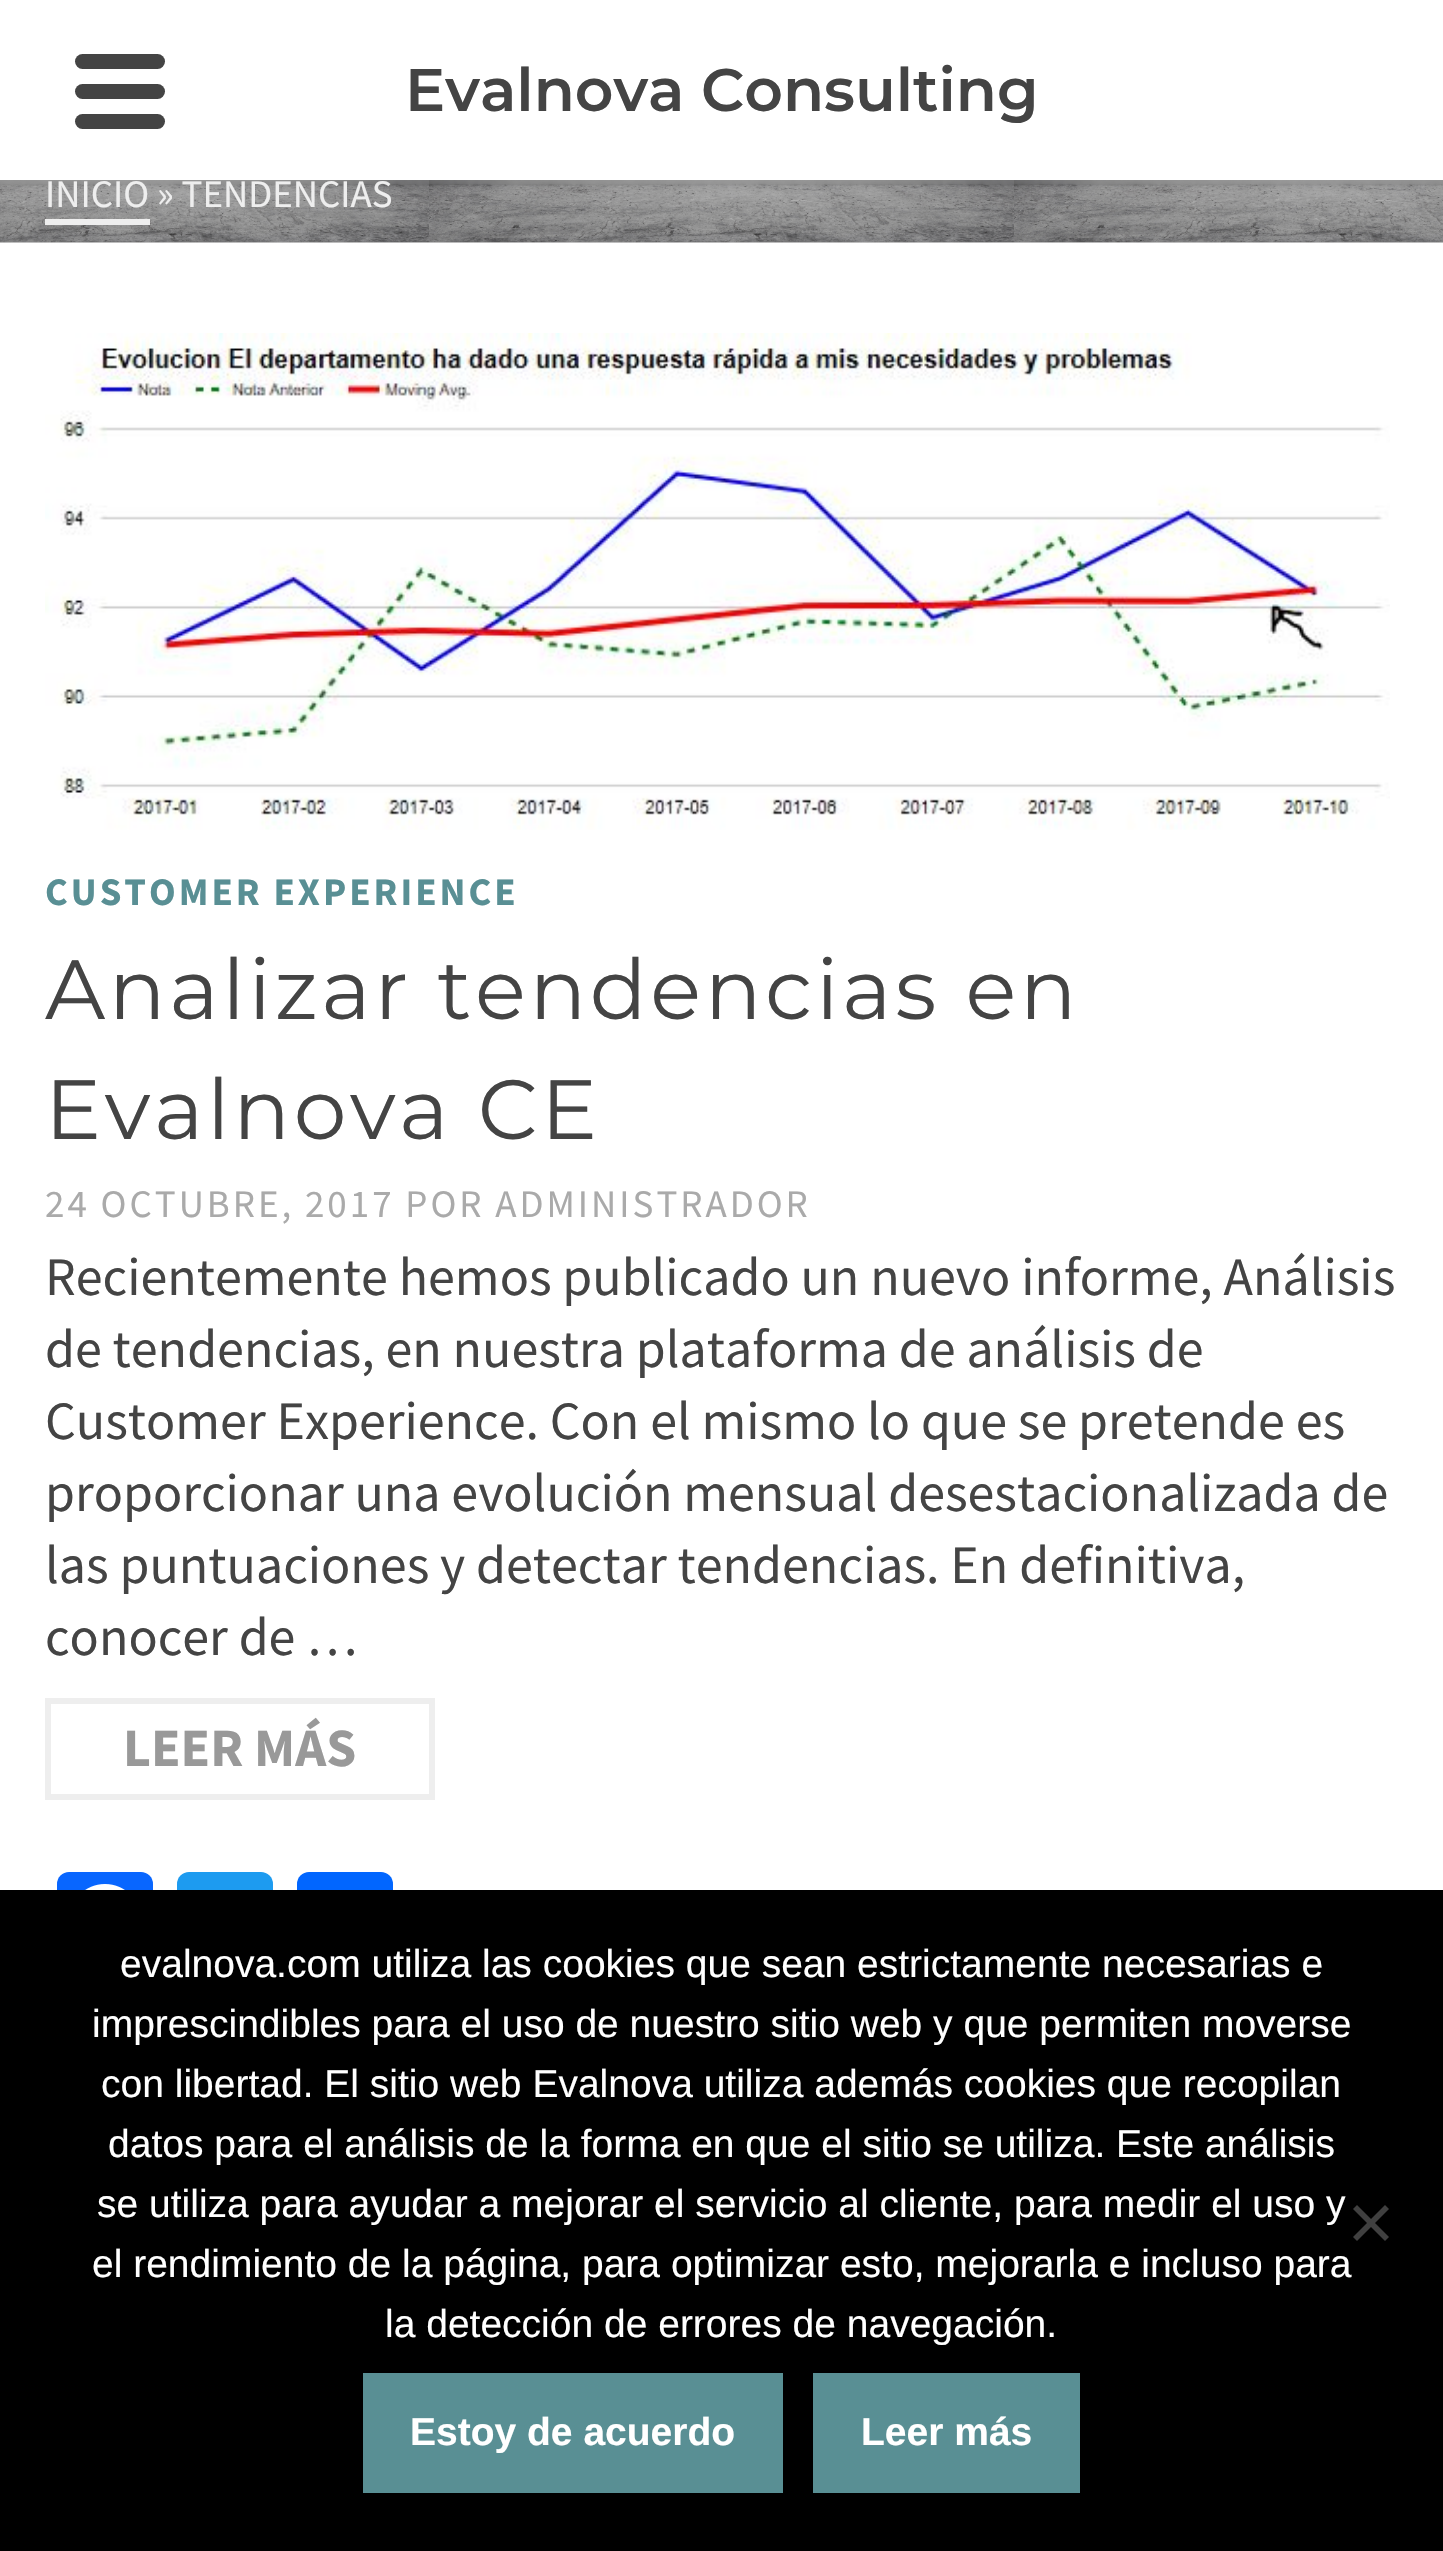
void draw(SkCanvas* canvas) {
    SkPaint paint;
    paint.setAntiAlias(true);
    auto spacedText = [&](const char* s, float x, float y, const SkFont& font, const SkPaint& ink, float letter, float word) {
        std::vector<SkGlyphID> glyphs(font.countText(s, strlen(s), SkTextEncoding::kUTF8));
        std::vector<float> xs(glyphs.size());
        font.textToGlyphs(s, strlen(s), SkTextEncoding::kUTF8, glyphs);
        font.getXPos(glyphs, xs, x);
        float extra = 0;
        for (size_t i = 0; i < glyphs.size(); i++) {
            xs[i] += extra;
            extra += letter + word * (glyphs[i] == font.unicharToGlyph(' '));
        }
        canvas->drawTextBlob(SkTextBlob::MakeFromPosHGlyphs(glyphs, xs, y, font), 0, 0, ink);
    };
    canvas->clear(0xFFFFFFFF);
    paint.setColor(0xFF444444);
    canvas->drawRoundRect(SkRect::MakeXYWH(75, 54, 90, 15), 7.5f, 7.5f, paint);
    canvas->drawRoundRect(SkRect::MakeXYWH(75, 84, 90, 15), 7.5f, 7.5f, paint);
    canvas->drawRoundRect(SkRect::MakeXYWH(75, 114, 90, 15), 7.5f, 7.5f, paint);
    SkFont font1(fontMgr->matchFamilyStyle("Montserrat", SkFontStyle(600, SkFontStyle::kNormal_Width, SkFontStyle::kUpright_Slant)), 60);
    font1.setSubpixel(true);
    canvas->drawString("Evalnova Consulting", 405, 111, font1, paint);
    canvas->drawImageRect(SkImages::DeferredFromEncodedData(SkData::MakeFromFileName("img1.png")), SkRect::MakeXYWH(0, 180, 1443, 63), SkSamplingOptions());
    paint.setColor(0x33000000);
    canvas->drawRect(SkRect::MakeXYWH(0, 180, 1443, 63), paint);
    SkFont font2(fontMgr->matchFamilyStyle("Source Sans Pro", SkFontStyle::Normal()), 39);
    font2.setSubpixel(true);
    paint.setColor(0xFFEEEEEE);
    canvas->drawString("INICIO » TENDENCIAS", 45, 207, font2, paint);
    canvas->drawRect(SkRect::MakeXYWH(45, 219, 105, 6), paint);
    canvas->drawImageRect(SkImages::DeferredFromEncodedData(SkData::MakeFromFileName("img2.png")), SkRect::MakeXYWH(45, 333, 1345, 497), SkSamplingOptions());
    SkFont font3(fontMgr->matchFamilyStyle("Source Sans Pro", SkFontStyle::Bold()), 39);
    font3.setSubpixel(true);
    paint.setColor(0xFF598F94);
    spacedText("CUSTOMER EXPERIENCE", 45, 905, font3, paint, 3, 0);
    SkFont font4(fontMgr->matchFamilyStyle("Montserrat", SkFontStyle::Normal()), 84);
    font4.setSubpixel(true);
    paint.setColor(0xFF444444);
    spacedText("Analizar tendencias en", 45, 1019, font4, paint, 3.6f, 0);
    spacedText("Evalnova CE", 45, 1139, font4, paint, 3.6f, 0);
    paint.setColor(0xFFAAAAAA);
    spacedText("24 OCTUBRE, 2017 POR ADMINISTRADOR", 45, 1217, font2, paint, 3, 0);
    SkFont font5(fontMgr->matchFamilyStyle("Source Sans Pro", SkFontStyle::Normal()), 54);
    font5.setSubpixel(true);
    paint.setColor(0xFF444444);
    canvas->drawString("Recientemente hemos publicado un nuevo informe, Análisis", 45, 1295, font5, paint);
    canvas->drawString("de tendencias, en nuestra plataforma de análisis de", 45, 1367, font5, paint);
    canvas->drawString("Customer Experience. Con el mismo lo que se pretende es", 45, 1439, font5, paint);
    canvas->drawString("proporcionar una evolución mensual desestacionalizada de", 45, 1511, font5, paint);
    canvas->drawString("las puntuaciones y detectar tendencias. En definitiva,", 45, 1583, font5, paint);
    canvas->drawString("conocer de …", 45, 1655, font5, paint);
    paint.setStyle(SkPaint::kStroke_Style);
    paint.setStrokeWidth(6);
    paint.setColor(0xFFEEEEEE);
    canvas->drawRect(SkRect::MakeXYWH(48, 1701, 384, 96), paint);
    SkFont font6(fontMgr->matchFamilyStyle("Source Sans Pro", SkFontStyle::Bold()), 54);
    font6.setSubpixel(true);
    paint.setStyle(SkPaint::kFill_Style);
    paint.setColor(0xFF999999);
    canvas->drawString("LEER MÁS", 123, 1766, font6, paint);
    paint.setColor(0xFF0866FF);
    canvas->drawRoundRect(SkRect::MakeXYWH(57, 1872, 96, 96), 12, 12, paint);
    canvas->drawImageRect(SkImages::DeferredFromEncodedData(SkData::MakeFromFileName("img3.png")), SkRect::MakeXYWH(85, 1884, 40, 6), SkSamplingOptions());
    paint.setColor(0xFF1D9BF0);
    canvas->drawRoundRect(SkRect::MakeXYWH(177, 1872, 96, 96), 12, 12, paint);
    paint.setColor(0xFF0166FF);
    canvas->drawRoundRect(SkRect::MakeXYWH(297, 1872, 96, 96), 12, 12, paint);
    paint.setColor(0xFF000000);
    canvas->drawRect(SkRect::MakeXYWH(0, 1890, 1443, 661), paint);
    SkFont font7(fontMgr->matchFamilyStyle("Liberation Sans", SkFontStyle::Normal()), 39);
    font7.setSubpixel(true);
    paint.setColor(0xFFFFFFFF);
    canvas->drawString("evalnova.com utiliza las cookies que sean estrictamente necesarias e", 120, 1977, font7, paint);
    canvas->drawString("imprescindibles para el uso de nuestro sitio web y que permiten moverse", 92, 2037, font7, paint);
    canvas->drawString("con libertad. El sitio web Evalnova utiliza además cookies que recopilan", 101, 2097, font7, paint);
    canvas->drawString("datos para el análisis de la forma en que el sitio se utiliza. Este análisis", 108, 2157, font7, paint);
    canvas->drawString("se utiliza para ayudar a mejorar el servicio al cliente, para medir el uso y", 97, 2217, font7, paint);
    canvas->drawString("el rendimiento de la página, para optimizar esto, mejorarla e incluso para", 92, 2277, font7, paint);
    canvas->drawString("la detección de errores de navegación.", 385, 2337, font7, paint);
    paint.setColor(0xFF404040);
    canvas->drawPath(SkPathBuilder().moveTo(1385, 2205).lineTo(1389, 2209).lineTo(1357, 2241).lineTo(1353, 2237).close().detach(), paint);
    canvas->drawPath(SkPathBuilder().moveTo(1353, 2209).lineTo(1357, 2205).lineTo(1389, 2237).lineTo(1385, 2241).close().detach(), paint);
    paint.setColor(0xFF598F94);
    canvas->drawRect(SkRect::MakeXYWH(363, 2373, 420, 120), paint);
    SkFont font8(fontMgr->matchFamilyStyle("Liberation Sans", SkFontStyle::Bold()), 39);
    font8.setSubpixel(true);
    paint.setColor(0xFFFFFFFF);
    canvas->drawString("Estoy de acuerdo", 410, 2445, font8, paint);
    paint.setColor(0xFF598F94);
    canvas->drawRect(SkRect::MakeXYWH(813, 2373, 267, 120), paint);
    paint.setColor(0xFFFFFFFF);
    canvas->drawString("Leer más", 861, 2445, font8, paint);
}
